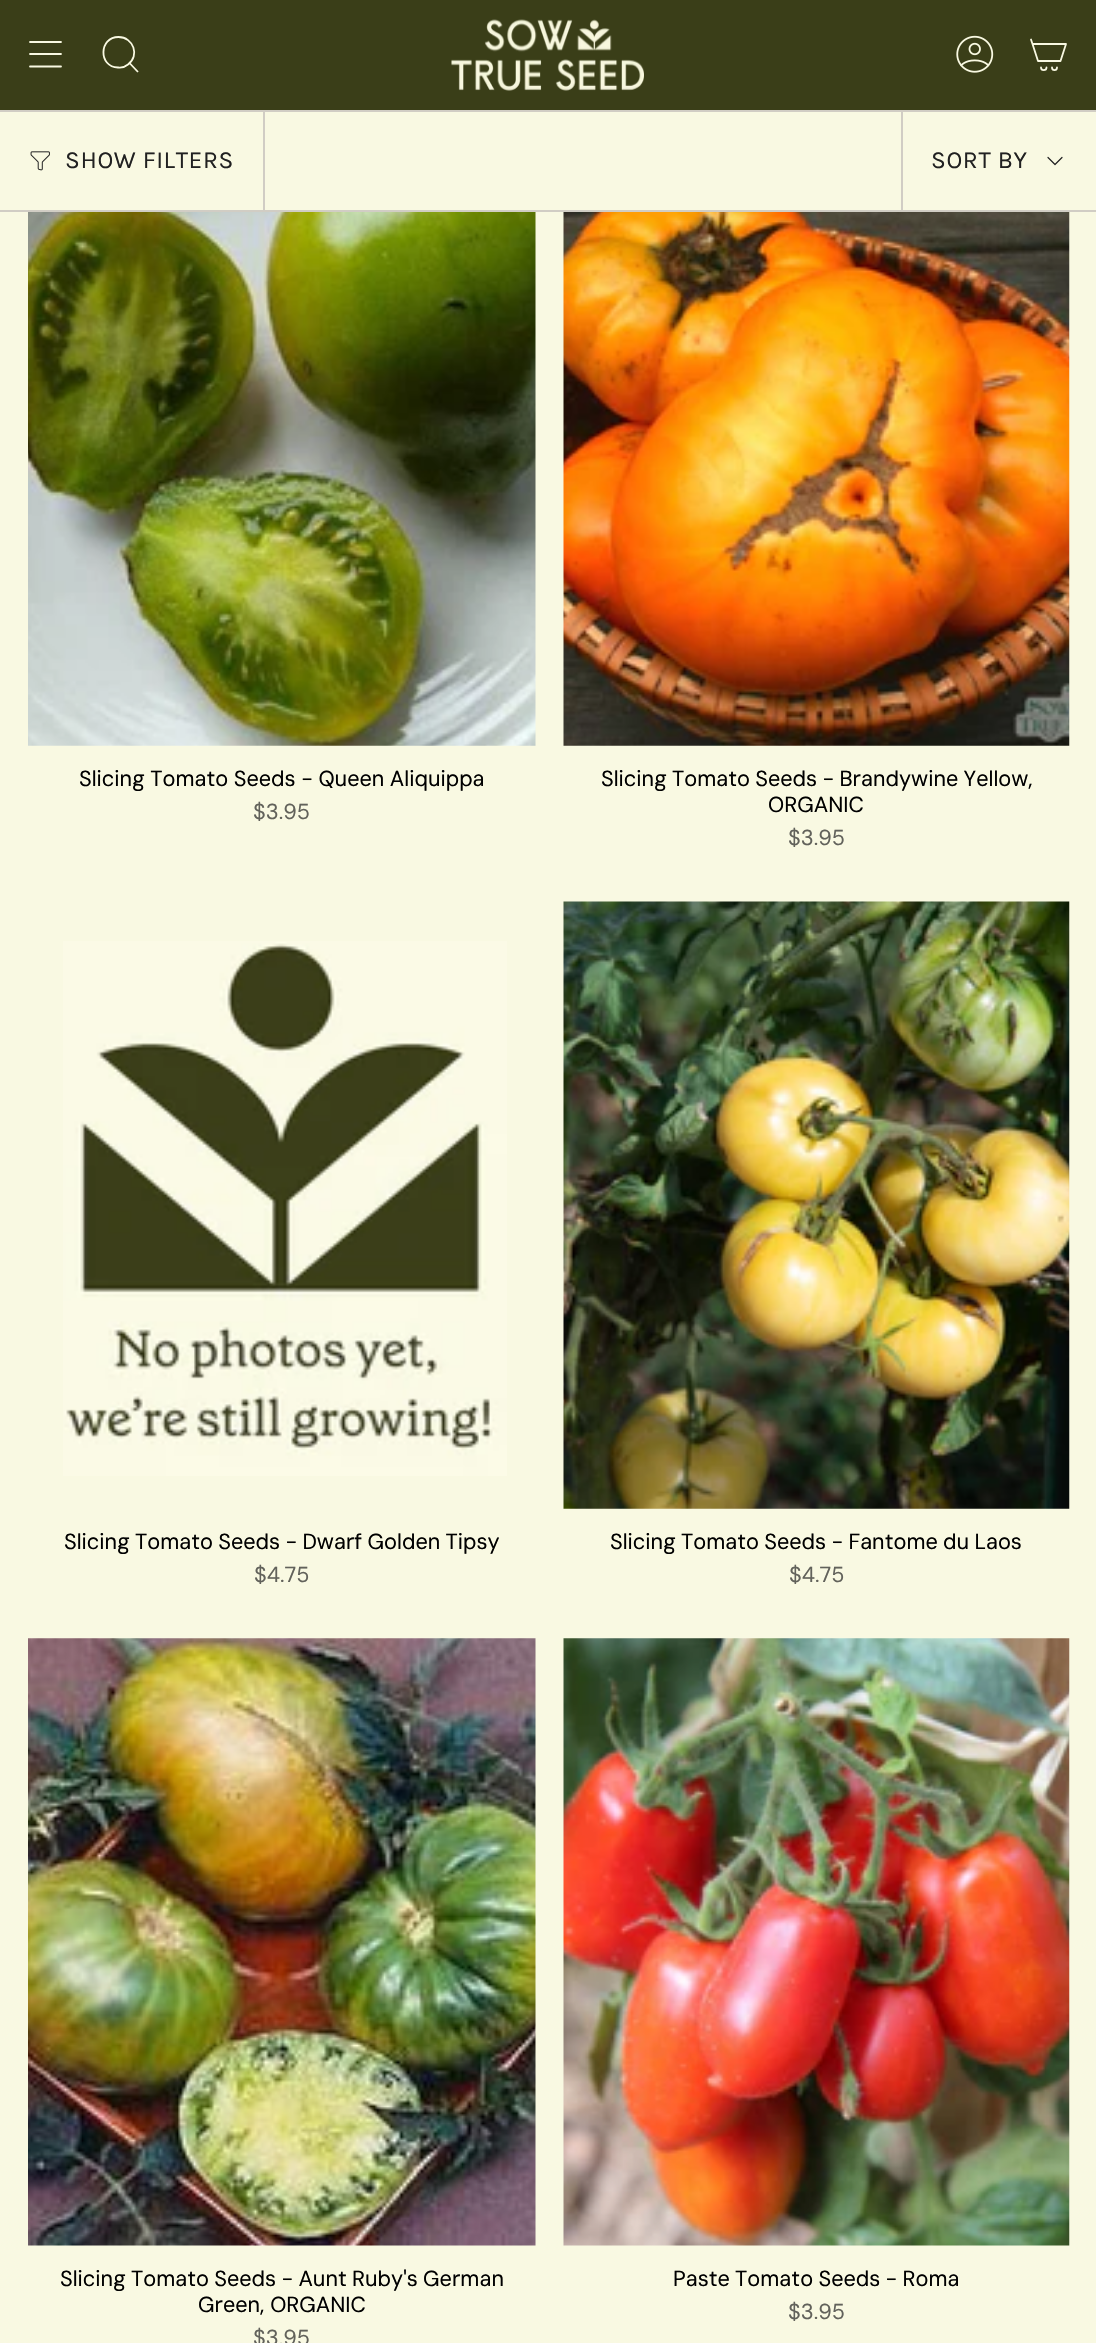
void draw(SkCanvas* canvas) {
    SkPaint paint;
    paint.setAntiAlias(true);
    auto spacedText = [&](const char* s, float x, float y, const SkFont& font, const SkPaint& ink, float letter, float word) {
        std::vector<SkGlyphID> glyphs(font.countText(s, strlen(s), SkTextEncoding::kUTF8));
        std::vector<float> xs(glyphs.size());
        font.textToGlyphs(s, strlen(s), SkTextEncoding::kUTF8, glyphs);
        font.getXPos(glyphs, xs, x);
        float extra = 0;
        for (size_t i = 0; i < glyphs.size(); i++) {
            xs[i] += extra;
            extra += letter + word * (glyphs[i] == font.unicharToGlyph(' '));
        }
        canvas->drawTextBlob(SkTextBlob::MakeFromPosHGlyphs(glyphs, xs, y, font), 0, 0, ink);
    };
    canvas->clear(0xFFF9F9E2);
    paint.setColor(0xFF3A3E18);
    canvas->drawRect(SkRect::MakeXYWH(0, 0, 1096, 110), paint);
    paint.setStyle(SkPaint::kStroke_Style);
    paint.setStrokeWidth(1.8f);
    paint.setStrokeCap(SkPaint::kRound_Cap);
    paint.setStrokeJoin(SkPaint::kRound_Join);
    paint.setColor(0xFFF9F9E2);
    canvas->drawPath(SkPathBuilder().moveTo(30, 42).lineTo(61, 42).moveTo(30, 54).lineTo(61, 54).moveTo(30, 66.5f).lineTo(61, 66.5f).detach(), paint);
    paint.setStrokeCap(SkPaint::kButt_Cap);
    paint.setStrokeJoin(SkPaint::kMiter_Join);
    canvas->drawPath(SkPathBuilder().moveTo(118.5f, 37).cubicTo(133.5f, 37, 140, 56, 128, 64.5f).cubicTo(125, 67, 121.5f, 68, 118, 67.5f).cubicTo(98, 67, 99, 37, 118.5f, 37).close().moveTo(129.5f, 63).lineTo(138, 72).detach(), paint);
    canvas->drawImageRect(SkImages::DeferredFromEncodedData(SkData::MakeFromFileName("img1.png")), SkRect::MakeXYWH(451, 19, 193, 72), SkSamplingOptions());
    canvas->drawImageRect(SkImages::DeferredFromEncodedData(SkData::MakeFromFileName("img2.png")), SkRect::MakeXYWH(956, 35, 38, 38), SkSamplingOptions());
    paint.setStrokeCap(SkPaint::kRound_Cap);
    paint.setStrokeJoin(SkPaint::kRound_Join);
    canvas->drawPath(SkPathBuilder().moveTo(1032.5f, 44).lineTo(1066, 44).lineTo(1060.5f, 61).lineTo(1038, 61).close().moveTo(1032.5f, 44).lineTo(1031, 39.5f).moveTo(1046.5f, 67.5f).cubicTo(1046.5f, 71, 1041, 71, 1041, 67.5f).moveTo(1057, 67.5f).cubicTo(1057, 71, 1052, 71, 1052, 67.5f).detach(), paint);
    paint.setStyle(SkPaint::kFill_Style);
    paint.setColor(0xFFD1CDC4);
    canvas->drawRect(SkRect::MakeXYWH(0, 110, 1096, 2), paint);
    canvas->drawRect(SkRect::MakeXYWH(0, 210, 1096, 2), paint);
    canvas->drawRect(SkRect::MakeXYWH(263, 112, 2, 98), paint);
    canvas->drawImageRect(SkImages::DeferredFromEncodedData(SkData::MakeFromFileName("img3.png")), SkRect::MakeXYWH(30, 151, 20, 20), SkSamplingOptions());
    SkFont font1(fontMgr->matchFamilyStyle("Karla", SkFontStyle::Normal()), 24.5f);
    font1.setSubpixel(true);
    paint.setColor(0xFF212121);
    spacedText("SHOW FILTERS", 65, 168, font1, paint, 0.6f, 0);
    paint.setColor(0xFFD1CDC4);
    canvas->drawRect(SkRect::MakeXYWH(901, 112, 2, 98), paint);
    paint.setColor(0xFF212121);
    spacedText("SORT BY", 931, 168, font1, paint, 0.6f, 0);
    paint.setStyle(SkPaint::kStroke_Style);
    paint.setStrokeWidth(1.2f);
    canvas->drawPath(SkPathBuilder().moveTo(1048, 157.5f).lineTo(1055, 164.5f).lineTo(1062, 157.5f).detach(), paint);
    canvas->drawImageRect(SkImages::DeferredFromEncodedData(SkData::MakeFromFileName("img4.png")), SkRect::MakeXYWH(28, 212, 508, 534), SkSamplingOptions());
    SkFont font2(fontMgr->matchFamilyStyle("DM Sans", SkFontStyle::Normal()), 21.7f);
    font2.setSubpixel(true);
    paint.setStyle(SkPaint::kFill_Style);
    paint.setColor(0xFF000000);
    spacedText("Slicing Tomato Seeds - Queen Aliquippa", 79, 786, font2, paint, 0, -0.25f);
    paint.setColor(0xFF62625B);
    canvas->drawString("$3.95", 253, 819, font2, paint);
    canvas->drawImageRect(SkImages::DeferredFromEncodedData(SkData::MakeFromFileName("img5.png")), SkRect::MakeXYWH(563, 212, 507, 534), SkSamplingOptions());
    paint.setColor(0xFF000000);
    spacedText("Slicing Tomato Seeds - Brandywine Yellow,", 601, 786, font2, paint, 0, -0.5f);
    canvas->drawString("ORGANIC", 768, 812, font2, paint);
    paint.setColor(0xFF62625B);
    canvas->drawString("$3.95", 788, 845, font2, paint);
    canvas->drawImageRect(SkImages::DeferredFromEncodedData(SkData::MakeFromFileName("img6.png")), SkRect::MakeXYWH(63, 941, 444, 535), SkSamplingOptions());
    paint.setColor(0xFF000000);
    spacedText("Slicing Tomato Seeds - Dwarf Golden Tipsy", 64, 1549, font2, paint, 0, -0.5f);
    paint.setColor(0xFF62625B);
    canvas->drawString("$4.75", 254, 1582, font2, paint);
    canvas->drawImageRect(SkImages::DeferredFromEncodedData(SkData::MakeFromFileName("img7.png")), SkRect::MakeXYWH(563, 901, 507, 608), SkSamplingOptions());
    paint.setColor(0xFF000000);
    spacedText("Slicing Tomato Seeds - Fantome du Laos", 610, 1549, font2, paint, 0, -0.5f);
    paint.setColor(0xFF62625B);
    canvas->drawString("$4.75", 789, 1582, font2, paint);
    canvas->drawImageRect(SkImages::DeferredFromEncodedData(SkData::MakeFromFileName("img8.png")), SkRect::MakeXYWH(28, 1638, 508, 608), SkSamplingOptions());
    paint.setColor(0xFF000000);
    spacedText("Slicing Tomato Seeds - Aunt Ruby's German", 60, 2286, font2, paint, 0, -0.5f);
    canvas->drawString("Green, ORGANIC", 198, 2312, font2, paint);
    paint.setColor(0xFF62625B);
    canvas->drawString("$3.95", 253, 2345, font2, paint);
    canvas->drawImageRect(SkImages::DeferredFromEncodedData(SkData::MakeFromFileName("img9.png")), SkRect::MakeXYWH(563, 1638, 507, 608), SkSamplingOptions());
    paint.setColor(0xFF000000);
    spacedText("Paste Tomato Seeds - Roma", 673, 2286, font2, paint, 0, -0.5f);
    paint.setColor(0xFF62625B);
    canvas->drawString("$3.95", 788, 2319, font2, paint);
}
